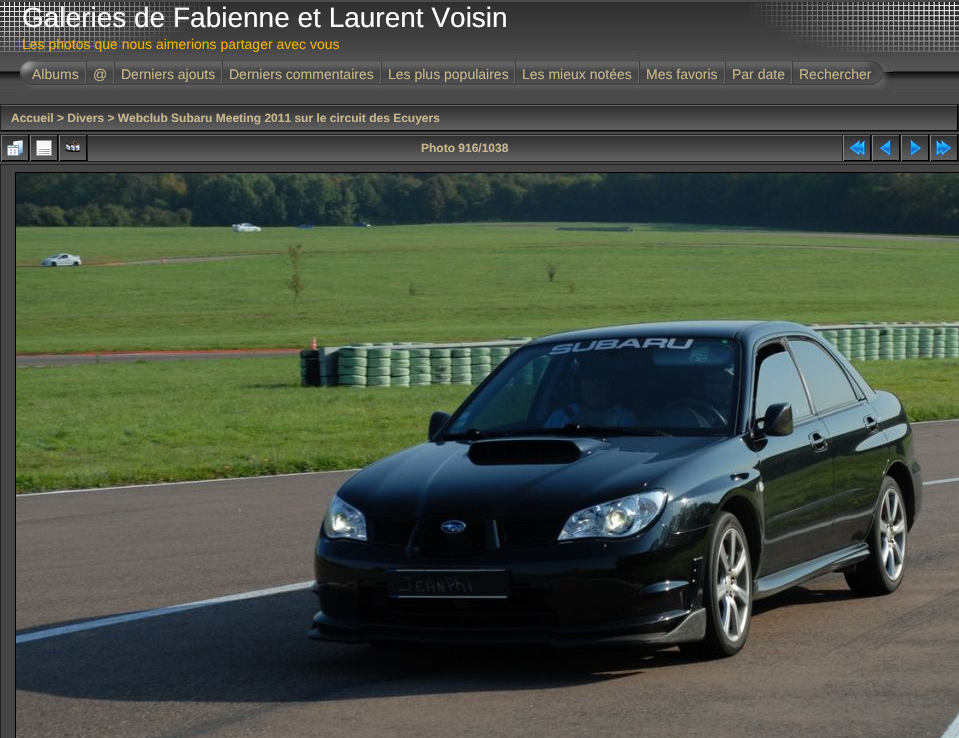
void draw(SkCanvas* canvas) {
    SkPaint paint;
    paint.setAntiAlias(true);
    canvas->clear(0xFF4A4A4A);
    canvas->drawImageRect(SkImages::DeferredFromEncodedData(SkData::MakeFromFileName("img1.png")), SkRect::MakeXYWH(208, 2, 542, 48), SkSamplingOptions());
    canvas->drawImageRect(SkImages::DeferredFromEncodedData(SkData::MakeFromFileName("img2.png")), SkRect::MakeXYWH(0, 2, 208, 50), SkSamplingOptions());
    canvas->drawImageRect(SkImages::DeferredFromEncodedData(SkData::MakeFromFileName("img3.png")), SkRect::MakeXYWH(750, 2, 209, 50), SkSamplingOptions());
    SkFont font1(fontMgr->matchFamilyStyle("Liberation Sans", SkFontStyle::Normal()), 28);
    font1.setSubpixel(true);
    paint.setColor(0xFFFFFFFF);
    canvas->drawString("Galeries de Fabienne et Laurent Voisin", 22, 27, font1, paint);
    SkFont font2(fontMgr->matchFamilyStyle("Liberation Sans", SkFontStyle::Normal()), 14);
    font2.setSubpixel(true);
    paint.setColor(0xFFF0AF00);
    canvas->drawString("Les photos que nous aimerions partager avec vous", 22, 49, font2, paint);
    canvas->drawImageRect(SkImages::DeferredFromEncodedData(SkData::MakeFromFileName("img4.png")), SkRect::MakeXYWH(0, 56, 959, 36), SkSamplingOptions());
    paint.setColor(0xFF4A4A4A);
    canvas->drawRect(SkRect::MakeXYWH(20, 56, 65, 36), paint);
    canvas->drawImageRect(SkImages::DeferredFromEncodedData(SkData::MakeFromFileName("img5.png")), SkRect::MakeXYWH(20, 57, 65, 33), SkSamplingOptions());
    paint.setColor(0xFFC6B78E);
    canvas->drawString("Albums", 32, 79, font2, paint);
    canvas->drawImageRect(SkImages::DeferredFromEncodedData(SkData::MakeFromFileName("img6.png")), SkRect::MakeXYWH(85, 61, 2, 29), SkSamplingOptions());
    paint.setColor(0xFF4A4A4A);
    canvas->drawRect(SkRect::MakeXYWH(87, 91, 26, 1), paint);
    canvas->drawImageRect(SkImages::DeferredFromEncodedData(SkData::MakeFromFileName("img7.png")), SkRect::MakeXYWH(87, 54, 26, 36), SkSamplingOptions());
    paint.setColor(0xFFC6B78E);
    canvas->drawString("@", 93, 79, font2, paint);
    canvas->drawImageRect(SkImages::DeferredFromEncodedData(SkData::MakeFromFileName("img6.png")), SkRect::MakeXYWH(113, 61, 2, 29), SkSamplingOptions());
    paint.setColor(0xFF4A4A4A);
    canvas->drawRect(SkRect::MakeXYWH(115, 91, 106, 1), paint);
    canvas->drawImageRect(SkImages::DeferredFromEncodedData(SkData::MakeFromFileName("img8.png")), SkRect::MakeXYWH(115, 54, 106, 36), SkSamplingOptions());
    paint.setColor(0xFFC6B78E);
    canvas->drawString("Derniers ajouts", 121, 79, font2, paint);
    canvas->drawImageRect(SkImages::DeferredFromEncodedData(SkData::MakeFromFileName("img6.png")), SkRect::MakeXYWH(221, 61, 2, 29), SkSamplingOptions());
    paint.setColor(0xFF4A4A4A);
    canvas->drawRect(SkRect::MakeXYWH(223, 91, 157, 1), paint);
    canvas->drawImageRect(SkImages::DeferredFromEncodedData(SkData::MakeFromFileName("img9.png")), SkRect::MakeXYWH(223, 54, 157, 36), SkSamplingOptions());
    paint.setColor(0xFFC6B78E);
    canvas->drawString("Derniers commentaires", 229, 79, font2, paint);
    canvas->drawImageRect(SkImages::DeferredFromEncodedData(SkData::MakeFromFileName("img6.png")), SkRect::MakeXYWH(380, 61, 2, 29), SkSamplingOptions());
    paint.setColor(0xFF4A4A4A);
    canvas->drawRect(SkRect::MakeXYWH(382, 91, 132, 1), paint);
    canvas->drawImageRect(SkImages::DeferredFromEncodedData(SkData::MakeFromFileName("img10.png")), SkRect::MakeXYWH(382, 54, 132, 36), SkSamplingOptions());
    paint.setColor(0xFFC6B78E);
    canvas->drawString("Les plus populaires", 388, 79, font2, paint);
    canvas->drawImageRect(SkImages::DeferredFromEncodedData(SkData::MakeFromFileName("img6.png")), SkRect::MakeXYWH(514, 61, 2, 29), SkSamplingOptions());
    paint.setColor(0xFF4A4A4A);
    canvas->drawRect(SkRect::MakeXYWH(516, 91, 122, 1), paint);
    canvas->drawImageRect(SkImages::DeferredFromEncodedData(SkData::MakeFromFileName("img11.png")), SkRect::MakeXYWH(516, 54, 122, 36), SkSamplingOptions());
    paint.setColor(0xFFC6B78E);
    canvas->drawString("Les mieux notées", 522, 79, font2, paint);
    canvas->drawImageRect(SkImages::DeferredFromEncodedData(SkData::MakeFromFileName("img6.png")), SkRect::MakeXYWH(638, 61, 2, 29), SkSamplingOptions());
    paint.setColor(0xFF4A4A4A);
    canvas->drawRect(SkRect::MakeXYWH(640, 91, 84, 1), paint);
    canvas->drawImageRect(SkImages::DeferredFromEncodedData(SkData::MakeFromFileName("img12.png")), SkRect::MakeXYWH(640, 54, 84, 36), SkSamplingOptions());
    paint.setColor(0xFFC6B78E);
    canvas->drawString("Mes favoris", 646, 79, font2, paint);
    canvas->drawImageRect(SkImages::DeferredFromEncodedData(SkData::MakeFromFileName("img6.png")), SkRect::MakeXYWH(724, 61, 2, 29), SkSamplingOptions());
    paint.setColor(0xFF4A4A4A);
    canvas->drawRect(SkRect::MakeXYWH(726, 91, 65, 1), paint);
    canvas->drawImageRect(SkImages::DeferredFromEncodedData(SkData::MakeFromFileName("img13.png")), SkRect::MakeXYWH(726, 54, 65, 36), SkSamplingOptions());
    paint.setColor(0xFFC6B78E);
    canvas->drawString("Par date", 732, 79, font2, paint);
    canvas->drawImageRect(SkImages::DeferredFromEncodedData(SkData::MakeFromFileName("img6.png")), SkRect::MakeXYWH(791, 61, 2, 29), SkSamplingOptions());
    paint.setColor(0xFF4A4A4A);
    canvas->drawRect(SkRect::MakeXYWH(793, 56, 100, 36), paint);
    canvas->drawImageRect(SkImages::DeferredFromEncodedData(SkData::MakeFromFileName("img14.png")), SkRect::MakeXYWH(793, 57, 100, 33), SkSamplingOptions());
    paint.setColor(0xFFC6B78E);
    canvas->drawString("Rechercher", 799, 79, font2, paint);
    paint.setColor(0xFF222222);
    canvas->drawRect(SkRect::MakeXYWH(0, 104, 959, 28), paint);
    canvas->drawImageRect(SkImages::DeferredFromEncodedData(SkData::MakeFromFileName("img15.png")), SkRect::MakeXYWH(1, 105, 956, 25), SkSamplingOptions());
    paint.setColor(0xFF000000);
    canvas->drawRect(SkRect::MakeXYWH(957, 105, 1, 26), paint);
    canvas->drawRect(SkRect::MakeXYWH(1, 130, 957, 1), paint);
    SkFont font3(fontMgr->matchFamilyStyle("Liberation Sans", SkFontStyle::Bold()), 12);
    font3.setSubpixel(true);
    paint.setColor(0xFFC6B78E);
    canvas->drawString("Accueil > Divers > Webclub Subaru Meeting 2011 sur le circuit des Ecuyers", 11, 122, font3, paint);
    paint.setColor(0xFF222222);
    canvas->drawRect(SkRect::MakeXYWH(0, 134, 959, 28), paint);
    canvas->drawImageRect(SkImages::DeferredFromEncodedData(SkData::MakeFromFileName("img16.png")), SkRect::MakeXYWH(2, 135, 26, 25), SkSamplingOptions());
    paint.setColor(0xFF000000);
    canvas->drawRect(SkRect::MakeXYWH(28, 135, 1, 26), paint);
    canvas->drawRect(SkRect::MakeXYWH(1, 160, 28, 1), paint);
    paint.setColor(0xFF838383);
    canvas->drawRect(SkRect::MakeXYWH(1, 135, 1, 26), paint);
    canvas->drawImageRect(SkImages::DeferredFromEncodedData(SkData::MakeFromFileName("img17.png")), SkRect::MakeXYWH(7, 140, 16, 16), SkSamplingOptions());
    canvas->drawImageRect(SkImages::DeferredFromEncodedData(SkData::MakeFromFileName("img16.png")), SkRect::MakeXYWH(31, 135, 26, 25), SkSamplingOptions());
    paint.setColor(0xFF000000);
    canvas->drawRect(SkRect::MakeXYWH(57, 135, 1, 26), paint);
    canvas->drawRect(SkRect::MakeXYWH(30, 160, 28, 1), paint);
    paint.setColor(0xFF838383);
    canvas->drawRect(SkRect::MakeXYWH(30, 135, 1, 26), paint);
    canvas->drawImageRect(SkImages::DeferredFromEncodedData(SkData::MakeFromFileName("img18.png")), SkRect::MakeXYWH(36, 140, 16, 16), SkSamplingOptions());
    canvas->drawImageRect(SkImages::DeferredFromEncodedData(SkData::MakeFromFileName("img16.png")), SkRect::MakeXYWH(60, 135, 26, 25), SkSamplingOptions());
    paint.setColor(0xFF000000);
    canvas->drawRect(SkRect::MakeXYWH(86, 135, 1, 26), paint);
    canvas->drawRect(SkRect::MakeXYWH(59, 160, 28, 1), paint);
    paint.setColor(0xFF838383);
    canvas->drawRect(SkRect::MakeXYWH(59, 135, 1, 26), paint);
    canvas->drawImageRect(SkImages::DeferredFromEncodedData(SkData::MakeFromFileName("img19.png")), SkRect::MakeXYWH(65, 141, 16, 12), SkSamplingOptions());
    canvas->drawImageRect(SkImages::DeferredFromEncodedData(SkData::MakeFromFileName("img20.png")), SkRect::MakeXYWH(88, 135, 754, 26), SkSamplingOptions());
    paint.setColor(0xFFC6B78E);
    canvas->drawString("Photo 916/1038", 421, 152, font3, paint);
    canvas->drawImageRect(SkImages::DeferredFromEncodedData(SkData::MakeFromFileName("img16.png")), SkRect::MakeXYWH(844, 135, 26, 25), SkSamplingOptions());
    paint.setColor(0xFF000000);
    canvas->drawRect(SkRect::MakeXYWH(870, 135, 1, 26), paint);
    canvas->drawRect(SkRect::MakeXYWH(843, 160, 28, 1), paint);
    paint.setColor(0xFF838383);
    canvas->drawRect(SkRect::MakeXYWH(843, 135, 1, 26), paint);
    canvas->drawImageRect(SkImages::DeferredFromEncodedData(SkData::MakeFromFileName("img21.png")), SkRect::MakeXYWH(849, 140, 16, 16), SkSamplingOptions());
    canvas->drawImageRect(SkImages::DeferredFromEncodedData(SkData::MakeFromFileName("img16.png")), SkRect::MakeXYWH(873, 135, 26, 25), SkSamplingOptions());
    paint.setColor(0xFF000000);
    canvas->drawRect(SkRect::MakeXYWH(899, 135, 1, 26), paint);
    canvas->drawRect(SkRect::MakeXYWH(872, 160, 28, 1), paint);
    paint.setColor(0xFF838383);
    canvas->drawRect(SkRect::MakeXYWH(872, 135, 1, 26), paint);
    canvas->drawImageRect(SkImages::DeferredFromEncodedData(SkData::MakeFromFileName("img22.png")), SkRect::MakeXYWH(879, 140, 12, 16), SkSamplingOptions());
    canvas->drawImageRect(SkImages::DeferredFromEncodedData(SkData::MakeFromFileName("img16.png")), SkRect::MakeXYWH(902, 135, 26, 25), SkSamplingOptions());
    paint.setColor(0xFF000000);
    canvas->drawRect(SkRect::MakeXYWH(928, 135, 1, 26), paint);
    canvas->drawRect(SkRect::MakeXYWH(901, 160, 28, 1), paint);
    paint.setColor(0xFF838383);
    canvas->drawRect(SkRect::MakeXYWH(901, 135, 1, 26), paint);
    canvas->drawImageRect(SkImages::DeferredFromEncodedData(SkData::MakeFromFileName("img23.png")), SkRect::MakeXYWH(910, 140, 12, 16), SkSamplingOptions());
    canvas->drawImageRect(SkImages::DeferredFromEncodedData(SkData::MakeFromFileName("img16.png")), SkRect::MakeXYWH(931, 135, 26, 25), SkSamplingOptions());
    paint.setColor(0xFF000000);
    canvas->drawRect(SkRect::MakeXYWH(957, 135, 1, 26), paint);
    canvas->drawRect(SkRect::MakeXYWH(930, 160, 28, 1), paint);
    paint.setColor(0xFF838383);
    canvas->drawRect(SkRect::MakeXYWH(930, 135, 1, 26), paint);
    canvas->drawImageRect(SkImages::DeferredFromEncodedData(SkData::MakeFromFileName("img24.png")), SkRect::MakeXYWH(936, 140, 16, 16), SkSamplingOptions());
    paint.setColor(0xFF222222);
    canvas->drawRect(SkRect::MakeXYWH(0, 164, 959, 574), paint);
    paint.setColor(0xFF454444);
    canvas->drawRect(SkRect::MakeXYWH(1, 165, 958, 573), paint);
    paint.setStyle(SkPaint::kStroke_Style);
    paint.setStrokeWidth(1);
    paint.setColor(0xFF000000);
    canvas->drawRect(SkRect::MakeXYWH(15.5f, 172.5f, 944, 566), paint);
    canvas->drawImageRect(SkImages::DeferredFromEncodedData(SkData::MakeFromFileName("img25.png")), SkRect::MakeXYWH(16, 173, 943, 565), SkSamplingOptions());
}
